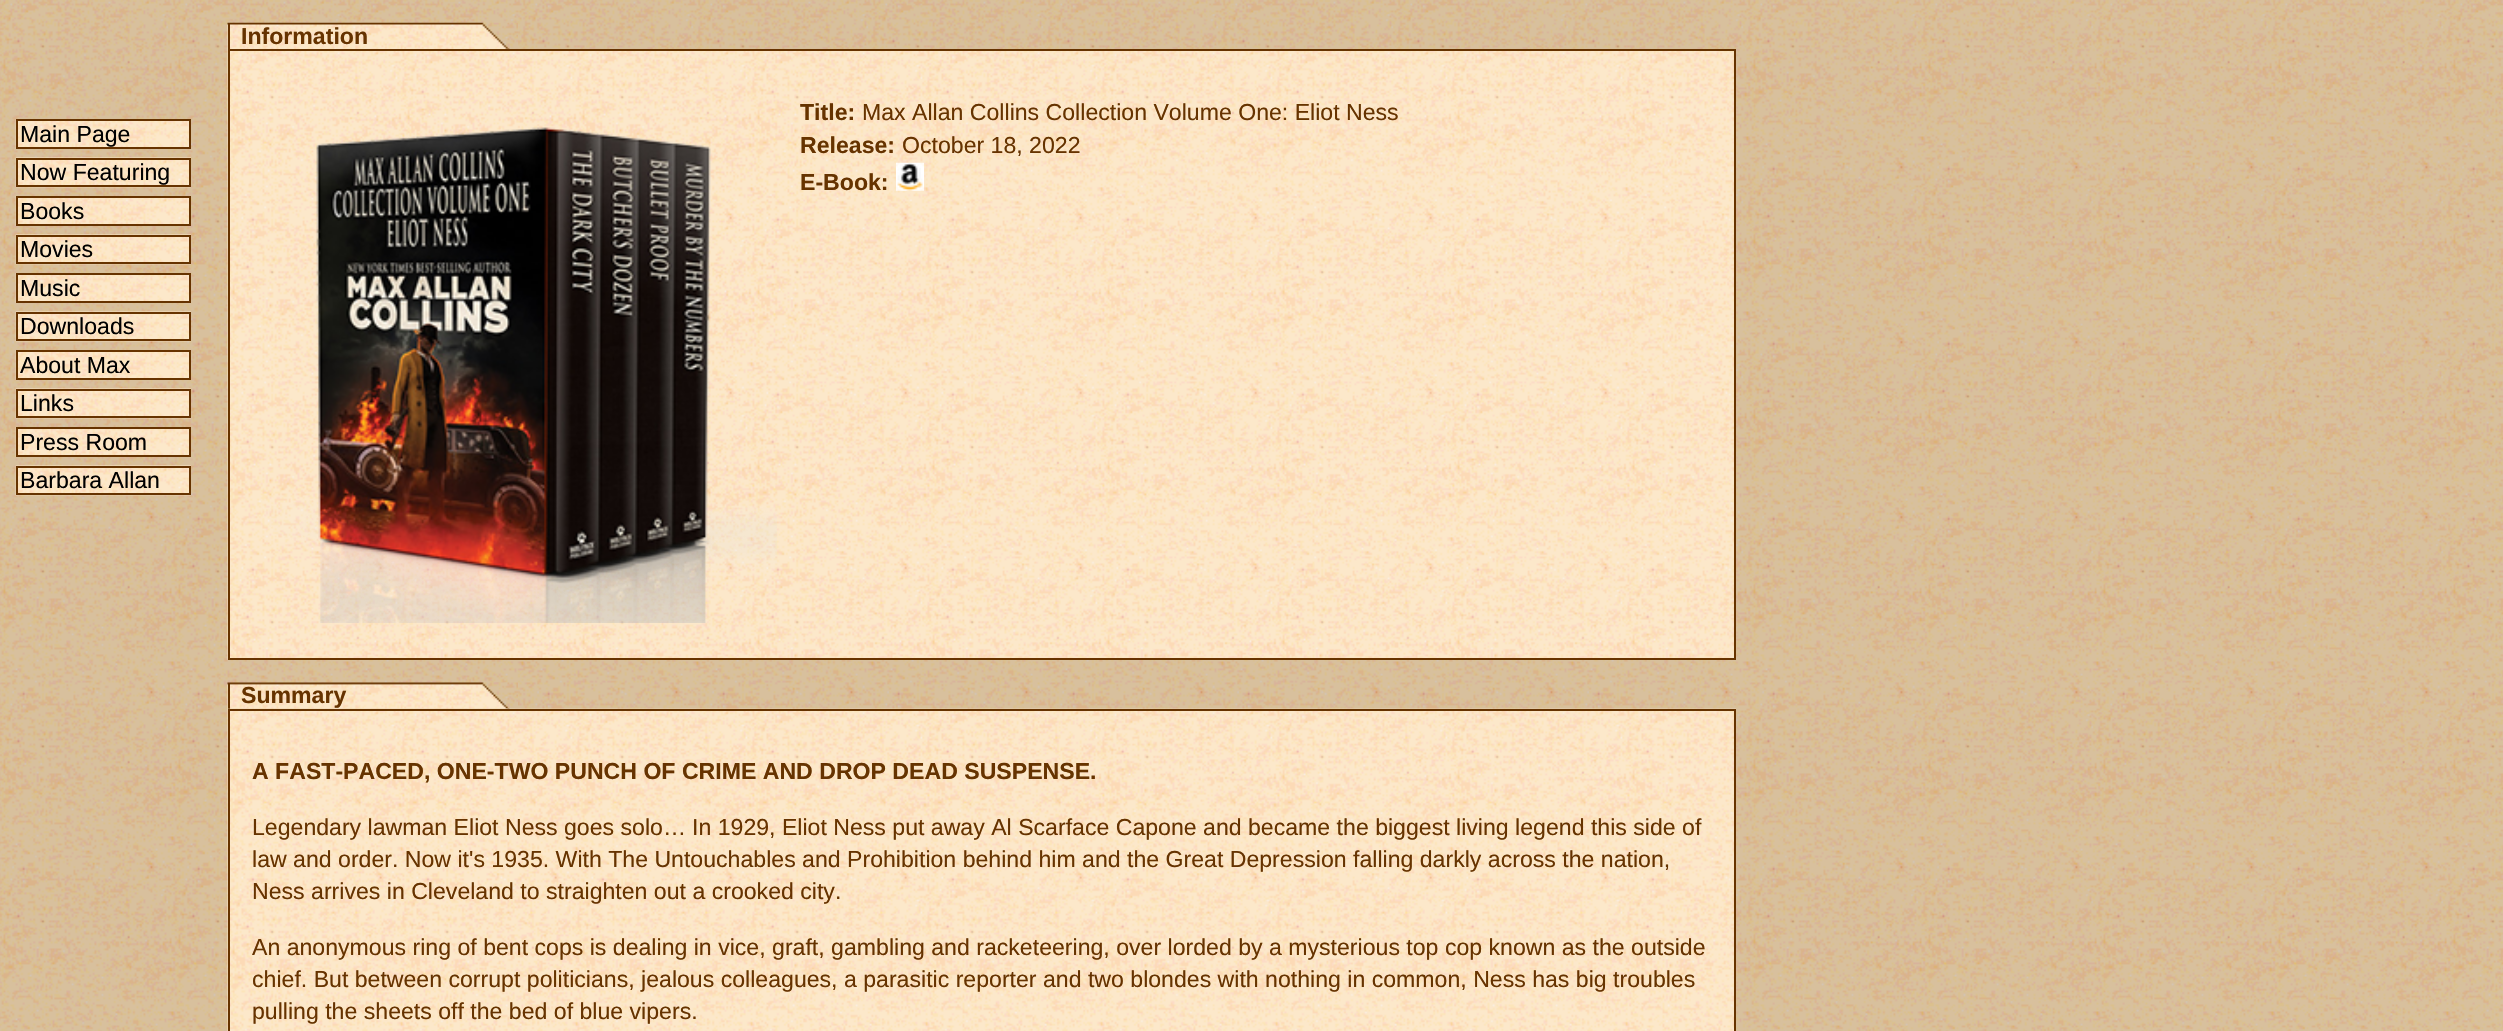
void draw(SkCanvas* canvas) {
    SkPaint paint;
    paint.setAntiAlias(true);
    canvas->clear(0xFFFFFFFF);
    canvas->drawImageRect(SkImages::DeferredFromEncodedData(SkData::MakeFromFileName("img1.png")), SkRect::MakeXYWH(0, 0, 2503, 1031), SkSamplingOptions());
    canvas->drawImageRect(SkImages::DeferredFromEncodedData(SkData::MakeFromFileName("img2.png")), SkRect::MakeXYWH(15, 119, 174, 30), SkSamplingOptions());
    paint.setStyle(SkPaint::kStroke_Style);
    paint.setStrokeWidth(2);
    paint.setColor(0xFF663300);
    canvas->drawRect(SkRect::MakeXYWH(17, 120, 173, 28), paint);
    SkFont font1(fontMgr->matchFamilyStyle("Liberation Sans", SkFontStyle::Normal()), 23.1f);
    font1.setSubpixel(true);
    paint.setStyle(SkPaint::kFill_Style);
    paint.setColor(0xFF000000);
    canvas->drawString("Main Page", 20, 142, font1, paint);
    canvas->drawImageRect(SkImages::DeferredFromEncodedData(SkData::MakeFromFileName("img3.png")), SkRect::MakeXYWH(15, 157, 176, 31), SkSamplingOptions());
    paint.setStyle(SkPaint::kStroke_Style);
    paint.setColor(0xFF663300);
    canvas->drawRect(SkRect::MakeXYWH(17, 159, 173, 27), paint);
    paint.setStyle(SkPaint::kFill_Style);
    paint.setColor(0xFF000000);
    canvas->drawString("Now Featuring", 20, 180, font1, paint);
    canvas->drawImageRect(SkImages::DeferredFromEncodedData(SkData::MakeFromFileName("img4.png")), SkRect::MakeXYWH(15, 196, 174, 30), SkSamplingOptions());
    paint.setStyle(SkPaint::kStroke_Style);
    paint.setColor(0xFF663300);
    canvas->drawRect(SkRect::MakeXYWH(17, 197, 173, 28), paint);
    paint.setStyle(SkPaint::kFill_Style);
    paint.setColor(0xFF000000);
    canvas->drawString("Books", 20, 219, font1, paint);
    canvas->drawImageRect(SkImages::DeferredFromEncodedData(SkData::MakeFromFileName("img5.png")), SkRect::MakeXYWH(15, 234, 176, 31), SkSamplingOptions());
    paint.setStyle(SkPaint::kStroke_Style);
    paint.setColor(0xFF663300);
    canvas->drawRect(SkRect::MakeXYWH(17, 236, 173, 27), paint);
    paint.setStyle(SkPaint::kFill_Style);
    paint.setColor(0xFF000000);
    canvas->drawString("Movies", 20, 257, font1, paint);
    canvas->drawImageRect(SkImages::DeferredFromEncodedData(SkData::MakeFromFileName("img6.png")), SkRect::MakeXYWH(15, 273, 174, 30), SkSamplingOptions());
    paint.setStyle(SkPaint::kStroke_Style);
    paint.setColor(0xFF663300);
    canvas->drawRect(SkRect::MakeXYWH(17, 274, 173, 28), paint);
    paint.setStyle(SkPaint::kFill_Style);
    paint.setColor(0xFF000000);
    canvas->drawString("Music", 20, 296, font1, paint);
    canvas->drawImageRect(SkImages::DeferredFromEncodedData(SkData::MakeFromFileName("img7.png")), SkRect::MakeXYWH(15, 311, 176, 31), SkSamplingOptions());
    paint.setStyle(SkPaint::kStroke_Style);
    paint.setColor(0xFF663300);
    canvas->drawRect(SkRect::MakeXYWH(17, 313, 173, 27), paint);
    paint.setStyle(SkPaint::kFill_Style);
    paint.setColor(0xFF000000);
    canvas->drawString("Downloads", 20, 334, font1, paint);
    canvas->drawImageRect(SkImages::DeferredFromEncodedData(SkData::MakeFromFileName("img8.png")), SkRect::MakeXYWH(15, 350, 174, 30), SkSamplingOptions());
    paint.setStyle(SkPaint::kStroke_Style);
    paint.setColor(0xFF663300);
    canvas->drawRect(SkRect::MakeXYWH(17, 351, 173, 28), paint);
    paint.setStyle(SkPaint::kFill_Style);
    paint.setColor(0xFF000000);
    canvas->drawString("About Max", 20, 373, font1, paint);
    canvas->drawImageRect(SkImages::DeferredFromEncodedData(SkData::MakeFromFileName("img9.png")), SkRect::MakeXYWH(15, 388, 176, 31), SkSamplingOptions());
    paint.setStyle(SkPaint::kStroke_Style);
    paint.setColor(0xFF663300);
    canvas->drawRect(SkRect::MakeXYWH(17, 390, 173, 27), paint);
    paint.setStyle(SkPaint::kFill_Style);
    paint.setColor(0xFF000000);
    canvas->drawString("Links", 20, 411, font1, paint);
    canvas->drawImageRect(SkImages::DeferredFromEncodedData(SkData::MakeFromFileName("img10.png")), SkRect::MakeXYWH(15, 427, 174, 30), SkSamplingOptions());
    paint.setStyle(SkPaint::kStroke_Style);
    paint.setColor(0xFF663300);
    canvas->drawRect(SkRect::MakeXYWH(17, 428, 173, 28), paint);
    paint.setStyle(SkPaint::kFill_Style);
    paint.setColor(0xFF000000);
    canvas->drawString("Press Room", 20, 450, font1, paint);
    canvas->drawImageRect(SkImages::DeferredFromEncodedData(SkData::MakeFromFileName("img11.png")), SkRect::MakeXYWH(15, 465, 176, 31), SkSamplingOptions());
    paint.setStyle(SkPaint::kStroke_Style);
    paint.setColor(0xFF663300);
    canvas->drawRect(SkRect::MakeXYWH(17, 467, 173, 27), paint);
    paint.setStyle(SkPaint::kFill_Style);
    paint.setColor(0xFF000000);
    canvas->drawString("Barbara Allan", 20, 488, font1, paint);
    canvas->drawImageRect(SkImages::DeferredFromEncodedData(SkData::MakeFromFileName("img12.png")), SkRect::MakeXYWH(227, 22, 291, 27), SkSamplingOptions());
    paint.setColor(0xFF663300);
    canvas->drawRect(SkRect::MakeXYWH(228, 23, 2, 26), paint);
    SkFont font2(fontMgr->matchFamilyStyle("Liberation Sans", SkFontStyle::Bold()), 23.1f);
    font2.setSubpixel(true);
    canvas->drawString("Information", 241, 44, font2, paint);
    canvas->drawImageRect(SkImages::DeferredFromEncodedData(SkData::MakeFromFileName("img13.png")), SkRect::MakeXYWH(227, 49, 1507, 611), SkSamplingOptions());
    paint.setStyle(SkPaint::kStroke_Style);
    canvas->drawRect(SkRect::MakeXYWH(229, 50, 1506, 609), paint);
    paint.setStyle(SkPaint::kFill_Style);
    canvas->drawString("Title:", 800, 120, font2, paint);
    canvas->drawString("Max Allan Collins Collection Volume One: Eliot Ness", 862, 120, font1, paint);
    canvas->drawImageRect(SkImages::DeferredFromEncodedData(SkData::MakeFromFileName("img14.png")), SkRect::MakeXYWH(263, 127, 514, 496), SkSamplingOptions());
    canvas->drawString("Release:", 800, 153, font2, paint);
    canvas->drawString("October 18, 2022", 902, 153, font1, paint);
    canvas->drawString("E-Book:", 800, 190, font2, paint);
    canvas->drawImageRect(SkImages::DeferredFromEncodedData(SkData::MakeFromFileName("img15.png")), SkRect::MakeXYWH(896, 162, 28, 29), SkSamplingOptions());
    canvas->drawImageRect(SkImages::DeferredFromEncodedData(SkData::MakeFromFileName("img16.png")), SkRect::MakeXYWH(227, 682, 291, 27), SkSamplingOptions());
    canvas->drawRect(SkRect::MakeXYWH(228, 683, 2, 26), paint);
    canvas->drawString("Summary", 241, 703, font2, paint);
    canvas->drawImageRect(SkImages::DeferredFromEncodedData(SkData::MakeFromFileName("img17.png")), SkRect::MakeXYWH(227, 708, 1509, 323), SkSamplingOptions());
    paint.setStyle(SkPaint::kStroke_Style);
    canvas->drawRect(SkRect::MakeXYWH(229, 710, 1506, 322), paint);
    paint.setStyle(SkPaint::kFill_Style);
    canvas->drawString("A FAST-PACED, ONE-TWO PUNCH OF CRIME AND DROP DEAD SUSPENSE.", 252, 779, font2, paint);
    canvas->drawString("Legendary lawman Eliot Ness goes solo…", 252, 835, font1, paint);
    canvas->drawString("In 1929, Eliot Ness put away Al Scarface Capone and became the biggest living legend this side of", 692, 835, font1, paint);
    canvas->drawString("law and order. Now it's 1935. With The Untouchables and Prohibition behind him and the Great Depression falling darkly across the nation,", 252, 867, font1, paint);
    canvas->drawString("Ness arrives in Cleveland to straighten out a crooked city.", 252, 899, font1, paint);
    canvas->drawString("An anonymous ring of bent cops is dealing in vice, graft, gambling and racketeering, over lorded by a mysterious top cop known as the outside", 252, 955, font1, paint);
    canvas->drawString("chief. But between corrupt politicians, jealous colleagues, a parasitic reporter and two blondes with nothing in common, Ness has big troubles", 252, 987, font1, paint);
    canvas->drawString("pulling the sheets off the bed of blue vipers.", 252, 1019, font1, paint);
}
